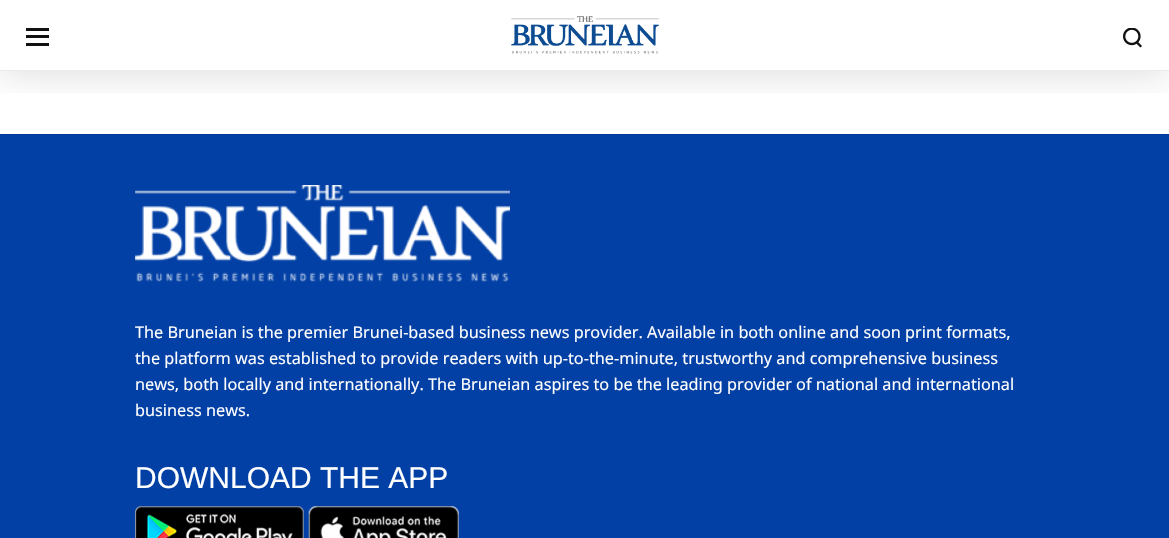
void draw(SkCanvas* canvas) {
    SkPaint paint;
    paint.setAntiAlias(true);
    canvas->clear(0xFFFFFFFF);
    canvas->save();
    canvas->clipRect(SkRect::MakeXYWH(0, 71, 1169, 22));
    paint.setColor(0x26000000);
    paint.setMaskFilter(SkMaskFilter::MakeBlur(kNormal_SkBlurStyle, 20));
    canvas->drawRect(SkRect::MakeXYWH(0, 0, 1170, 71), paint);
    paint.setMaskFilter(nullptr);
    canvas->restore();
    paint.setColor(0xFFEBEBEB);
    canvas->drawRect(SkRect::MakeXYWH(0, 70, 1169, 1), paint);
    paint.setColor(0xFF111111);
    canvas->drawRect(SkRect::MakeXYWH(26, 28, 23, 3), paint);
    canvas->drawRect(SkRect::MakeXYWH(26, 35, 23, 3), paint);
    canvas->drawRect(SkRect::MakeXYWH(26, 43, 23, 3), paint);
    canvas->drawImageRect(SkImages::DeferredFromEncodedData(SkData::MakeFromFileName("img1.png")), SkRect::MakeXYWH(511, 16, 148, 38), SkSamplingOptions());
    canvas->drawImageRect(SkImages::DeferredFromEncodedData(SkData::MakeFromFileName("img2.png")), SkRect::MakeXYWH(1123, 28, 19, 20), SkSamplingOptions());
    paint.setColor(0xFF0240A5);
    canvas->drawRect(SkRect::MakeXYWH(0, 135, 1169, 403), paint);
    paint.setColor(0xFF023A95);
    canvas->drawRect(SkRect::MakeXYWH(0, 134, 1169, 1), paint);
    canvas->drawImageRect(SkImages::DeferredFromEncodedData(SkData::MakeFromFileName("img3.png")), SkRect::MakeXYWH(135, 185, 375, 97), SkSamplingOptions());
    SkFont font1(fontMgr->matchFamilyStyle("Noto Sans", SkFontStyle::Normal()), 16.25f);
    font1.setSubpixel(true);
    paint.setColor(0xFFFFFFFF);
    canvas->drawString("The Bruneian is the premier Brunei-based business news provider. Available in both online and soon print formats,", 135, 338, font1, paint);
    canvas->drawString("the platform was established to provide readers with up-to-the-minute, trustworthy and comprehensive business", 135, 364, font1, paint);
    canvas->drawString("news, both locally and internationally. The Bruneian aspires to be the leading provider of national and international", 135, 390, font1, paint);
    canvas->drawString("business news.", 135, 416, font1, paint);
    SkFont font2(fontMgr->matchFamilyStyle("Liberation Sans", SkFontStyle::Normal()), 30);
    font2.setSubpixel(true);
    canvas->drawString("DOWNLOAD THE APP", 135, 488, font2, paint);
    canvas->drawImageRect(SkImages::DeferredFromEncodedData(SkData::MakeFromFileName("img4.png")), SkRect::MakeXYWH(135, 506, 169, 32), SkSamplingOptions());
    canvas->drawImageRect(SkImages::DeferredFromEncodedData(SkData::MakeFromFileName("img5.png")), SkRect::MakeXYWH(308, 506, 151, 32), SkSamplingOptions());
}
